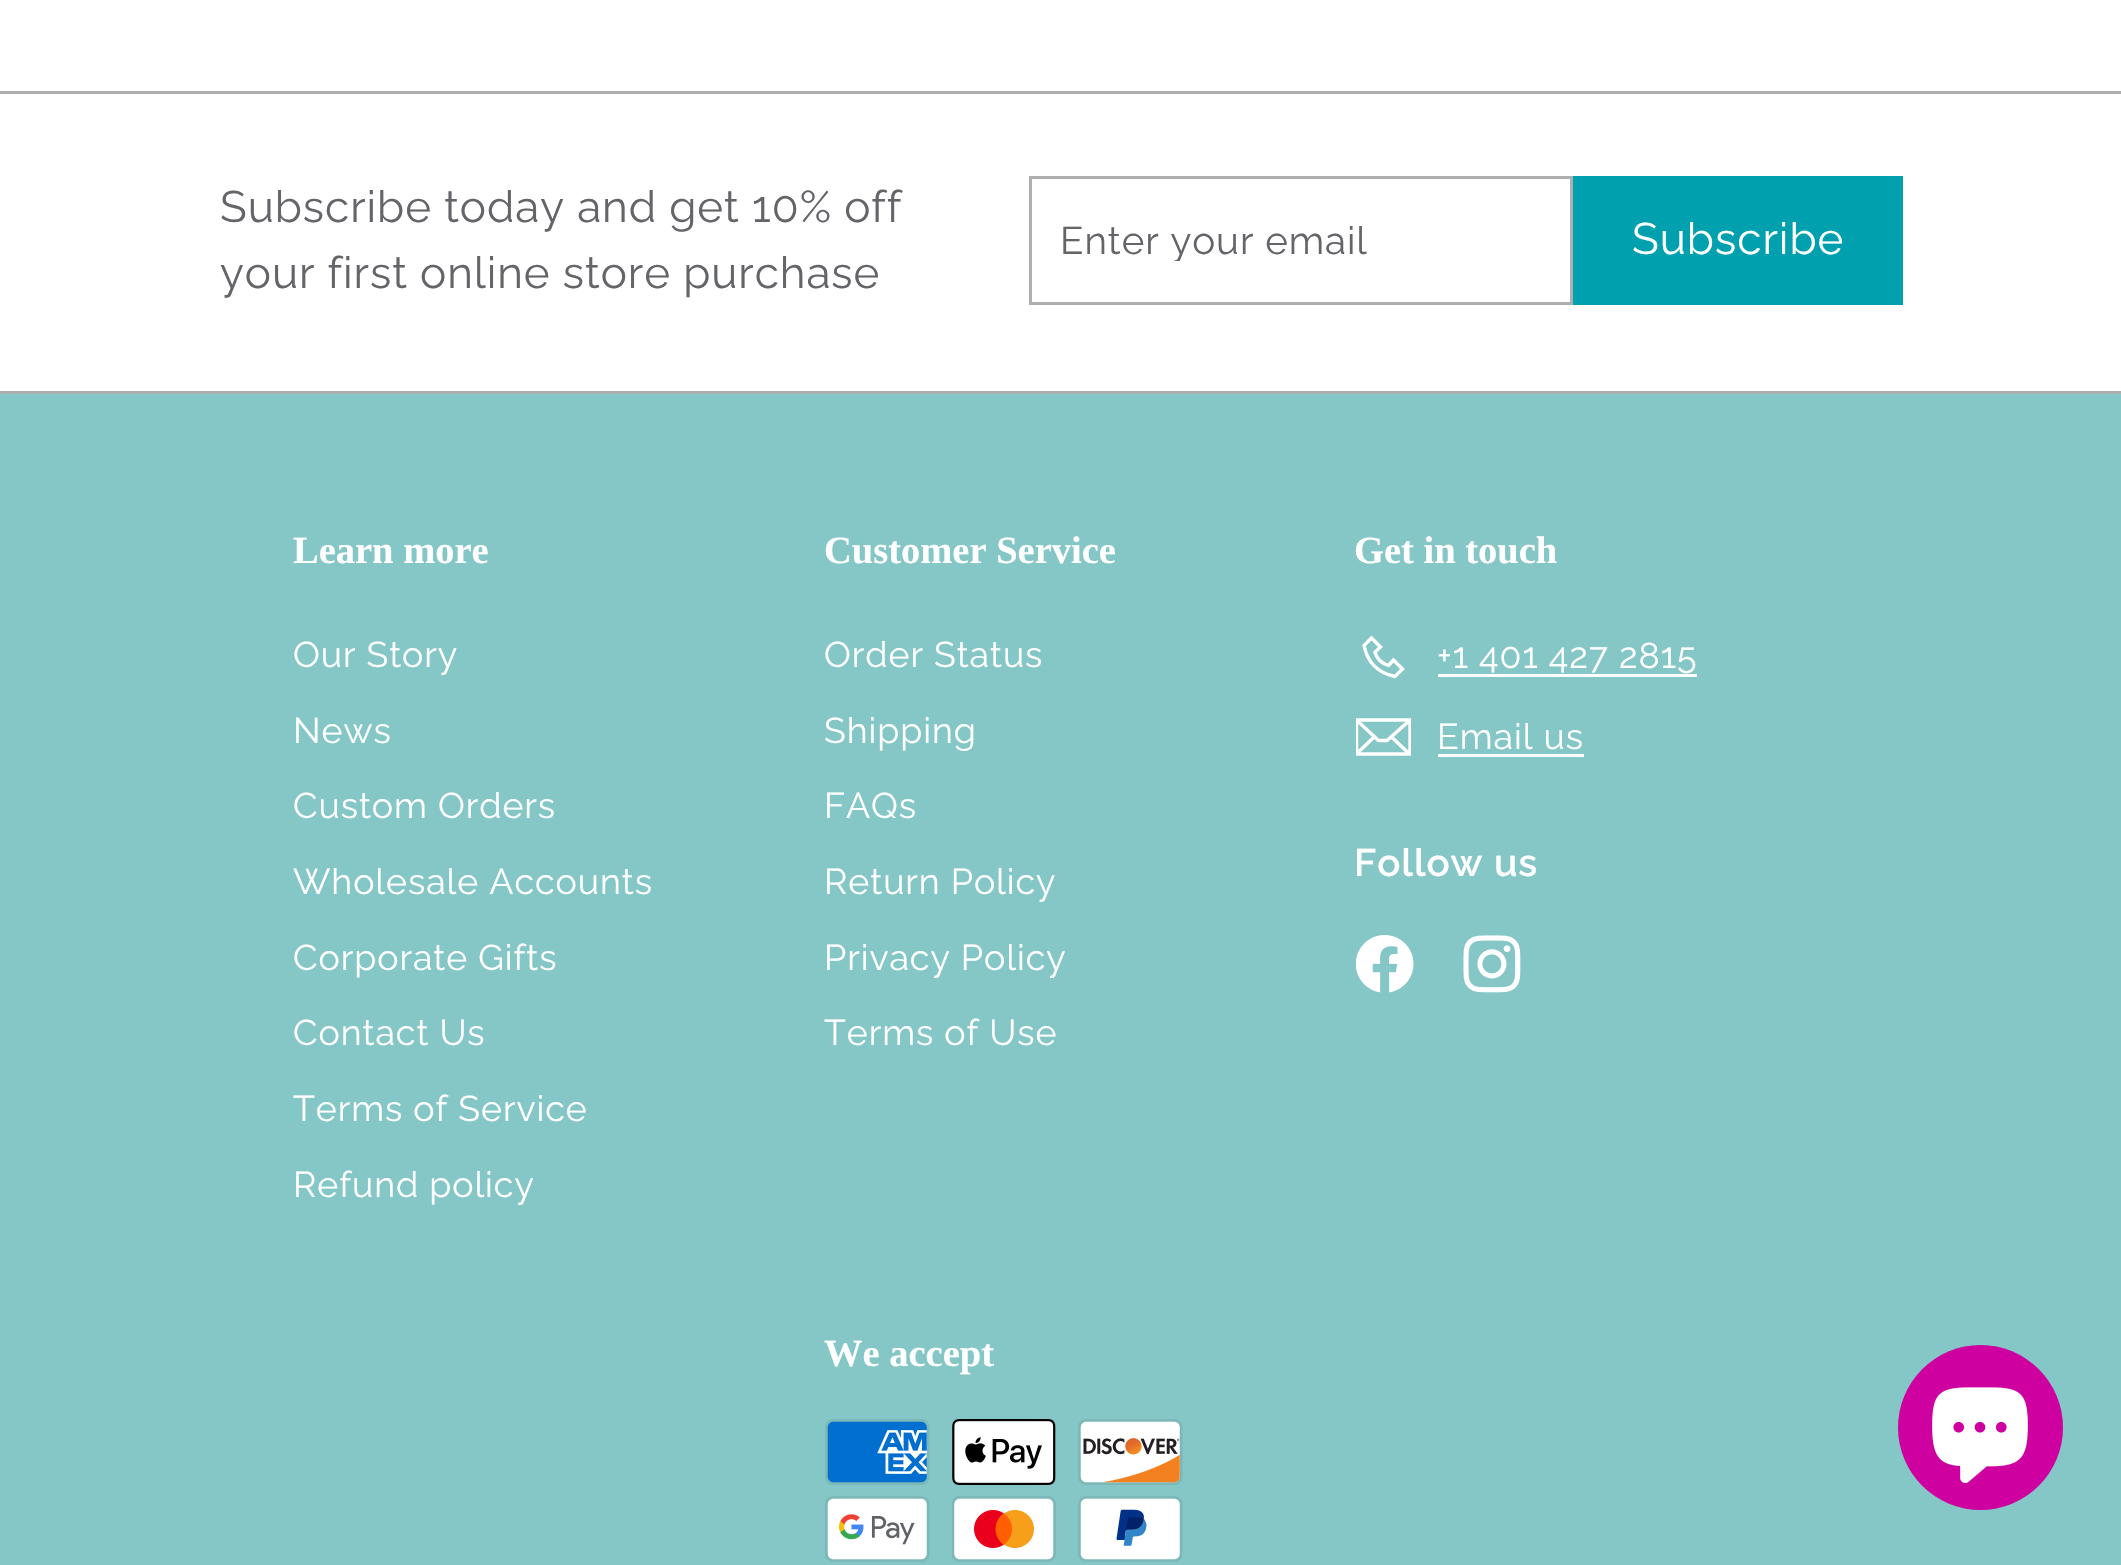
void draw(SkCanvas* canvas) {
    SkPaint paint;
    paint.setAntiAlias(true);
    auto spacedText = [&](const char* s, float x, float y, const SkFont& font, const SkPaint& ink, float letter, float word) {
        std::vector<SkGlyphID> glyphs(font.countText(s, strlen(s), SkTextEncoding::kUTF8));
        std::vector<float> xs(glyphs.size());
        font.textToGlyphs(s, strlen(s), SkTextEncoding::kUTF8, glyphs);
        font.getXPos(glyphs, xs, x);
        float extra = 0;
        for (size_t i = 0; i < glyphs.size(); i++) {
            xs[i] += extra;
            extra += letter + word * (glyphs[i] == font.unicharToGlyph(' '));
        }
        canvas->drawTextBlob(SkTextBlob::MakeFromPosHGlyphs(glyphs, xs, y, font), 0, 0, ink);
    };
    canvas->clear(0xFFFFFFFF);
    paint.setColor(0xFFADAEB0);
    canvas->drawRect(SkRect::MakeXYWH(0, 91, 2121, 3), paint);
    SkFont font1(fontMgr->matchFamilyStyle("Raleway", SkFontStyle::Normal()), 44);
    font1.setSubpixel(true);
    paint.setColor(0xFF636569);
    spacedText("Subscribe today and get 10% off", 220, 222, font1, paint, 0.95f, 0);
    spacedText("your first online store purchase", 220, 288, font1, paint, 0.95f, 0);
    paint.setStyle(SkPaint::kStroke_Style);
    paint.setStrokeWidth(3);
    paint.setColor(0xFFADAEB0);
    canvas->drawRect(SkRect::MakeXYWH(1030.5f, 177.5f, 541, 126), paint);
    canvas->save();
    canvas->clipRect(SkRect::MakeXYWH(1059, 217, 484, 44));
    SkFont font2(fontMgr->matchFamilyStyle("Raleway", SkFontStyle::Normal()), 38.5f);
    font2.setSubpixel(true);
    paint.setStyle(SkPaint::kFill_Style);
    paint.setColor(0xFF636569);
    spacedText("Enter your email", 1060, 254, font2, paint, 0.95f, 0);
    canvas->restore();
    paint.setColor(0xFF00A0AF);
    canvas->drawRect(SkRect::MakeXYWH(1573, 176, 330, 129), paint);
    paint.setColor(0xFFFFFFFF);
    spacedText("Subscribe", 1632, 254, font1, paint, 1, 0);
    paint.setColor(0xFF85C6C6);
    canvas->drawRect(SkRect::MakeXYWH(0, 394, 2121, 1171), paint);
    paint.setColor(0xFFADAEB0);
    canvas->drawRect(SkRect::MakeXYWH(0, 391, 2121, 3), paint);
    SkFont font3(fontMgr->matchFamilyStyle("Liberation Serif", SkFontStyle::Bold()), 38.5f);
    font3.setSubpixel(true);
    paint.setColor(0xFFFFFFFF);
    canvas->drawString("Learn more", 293, 563, font3, paint);
    SkFont font4(fontMgr->matchFamilyStyle("Raleway", SkFontStyle::Normal()), 35.75f);
    font4.setSubpixel(true);
    spacedText("Our Story", 293, 667, font4, paint, 0.95f, 0);
    spacedText("News", 293, 743, font4, paint, 0.95f, 0);
    spacedText("Custom Orders", 293, 818, font4, paint, 0.95f, 0);
    spacedText("Wholesale Accounts", 293, 894, font4, paint, 0.95f, 0);
    spacedText("Corporate Gifts", 293, 970, font4, paint, 0.95f, 0);
    spacedText("Contact Us", 293, 1045, font4, paint, 0.95f, 0);
    spacedText("Terms of Service", 293, 1121, font4, paint, 0.95f, 0);
    spacedText("Refund policy", 293, 1197, font4, paint, 0.95f, 0);
    canvas->drawString("Customer Service", 824, 563, font3, paint);
    spacedText("Order Status", 824, 667, font4, paint, 0.95f, 0);
    spacedText("Shipping", 824, 743, font4, paint, 0.95f, 0);
    spacedText("FAQs", 824, 818, font4, paint, 0.95f, 0);
    spacedText("Return Policy", 824, 894, font4, paint, 0.95f, 0);
    spacedText("Privacy Policy", 824, 970, font4, paint, 0.95f, 0);
    spacedText("Terms of Use", 824, 1045, font4, paint, 0.95f, 0);
    canvas->drawString("Get in touch", 1354, 563, font3, paint);
    paint.setStyle(SkPaint::kStroke_Style);
    paint.setStrokeWidth(3.4f);
    canvas->drawPath(SkPathBuilder().moveTo(1371.5f, 638).lineTo(1380.5f, 647).lineTo(1375, 652).cubicTo(1376.5f, 658.5f, 1381, 663, 1388.5f, 665.5f).lineTo(1393.5f, 660).lineTo(1402.5f, 669).lineTo(1395, 676.5f).cubicTo(1378, 673, 1367.5f, 662.5f, 1364, 645.5f).close().detach(), paint);
    paint.setStyle(SkPaint::kFill_Style);
    spacedText("+1 401 427 2815", 1437, 668, font4, paint, 0.95f, 0);
    canvas->drawRect(SkRect::MakeXYWH(1438, 674, 259, 3), paint);
    canvas->save();
    canvas->clipRect(SkRect::MakeXYWH(1356, 710, 55, 55));
    paint.setStyle(SkPaint::kStroke_Style);
    canvas->drawPath(SkPathBuilder().moveTo(1410, 754).lineTo(1356.5f, 754).lineTo(1356.5f, 720).lineTo(1410, 720).close().moveTo(1356.5f, 720).lineTo(1378.5f, 740.5f).lineTo(1387, 740.5f).lineTo(1410, 720).moveTo(1374.5f, 736.5f).lineTo(1357, 753.5f).moveTo(1409.5f, 754).lineTo(1391, 736.5f).detach(), paint);
    canvas->restore();
    paint.setStyle(SkPaint::kFill_Style);
    spacedText("Email us", 1437, 749, font4, paint, 0.95f, 0);
    canvas->drawRect(SkRect::MakeXYWH(1438, 754, 146, 3), paint);
    SkFont font5(fontMgr->matchFamilyStyle("Raleway", SkFontStyle(600, SkFontStyle::kNormal_Width, SkFontStyle::kUpright_Slant)), 38.5f);
    font5.setSubpixel(true);
    spacedText("Follow us", 1354, 876, font5, paint, 0.95f, 0);
    canvas->drawImageRect(SkImages::DeferredFromEncodedData(SkData::MakeFromFileName("img1.png")), SkRect::MakeXYWH(1356, 935, 58, 58), SkSamplingOptions());
    canvas->drawImageRect(SkImages::DeferredFromEncodedData(SkData::MakeFromFileName("img2.png")), SkRect::MakeXYWH(1463, 935, 58, 58), SkSamplingOptions());
    canvas->drawString("We accept", 824, 1366, font3, paint);
    canvas->drawImageRect(SkImages::DeferredFromEncodedData(SkData::MakeFromFileName("img3.png")), SkRect::MakeXYWH(825, 1419, 105, 66), SkSamplingOptions());
    canvas->drawImageRect(SkImages::DeferredFromEncodedData(SkData::MakeFromFileName("img4.png")), SkRect::MakeXYWH(952, 1419, 104, 66), SkSamplingOptions());
    canvas->drawImageRect(SkImages::DeferredFromEncodedData(SkData::MakeFromFileName("img5.png")), SkRect::MakeXYWH(1078, 1419, 105, 66), SkSamplingOptions());
    canvas->drawImageRect(SkImages::DeferredFromEncodedData(SkData::MakeFromFileName("img6.png")), SkRect::MakeXYWH(825, 1496, 105, 66), SkSamplingOptions());
    canvas->drawImageRect(SkImages::DeferredFromEncodedData(SkData::MakeFromFileName("img7.png")), SkRect::MakeXYWH(952, 1496, 104, 66), SkSamplingOptions());
    canvas->drawImageRect(SkImages::DeferredFromEncodedData(SkData::MakeFromFileName("img8.png")), SkRect::MakeXYWH(1078, 1496, 105, 66), SkSamplingOptions());
    paint.setColor(0xFFCE009F);
    canvas->drawCircle(1980.5f, 1427.5f, 82.5f, paint);
    canvas->drawImageRect(SkImages::DeferredFromEncodedData(SkData::MakeFromFileName("img9.png")), SkRect::MakeXYWH(1932, 1387, 96, 97), SkSamplingOptions());
}
